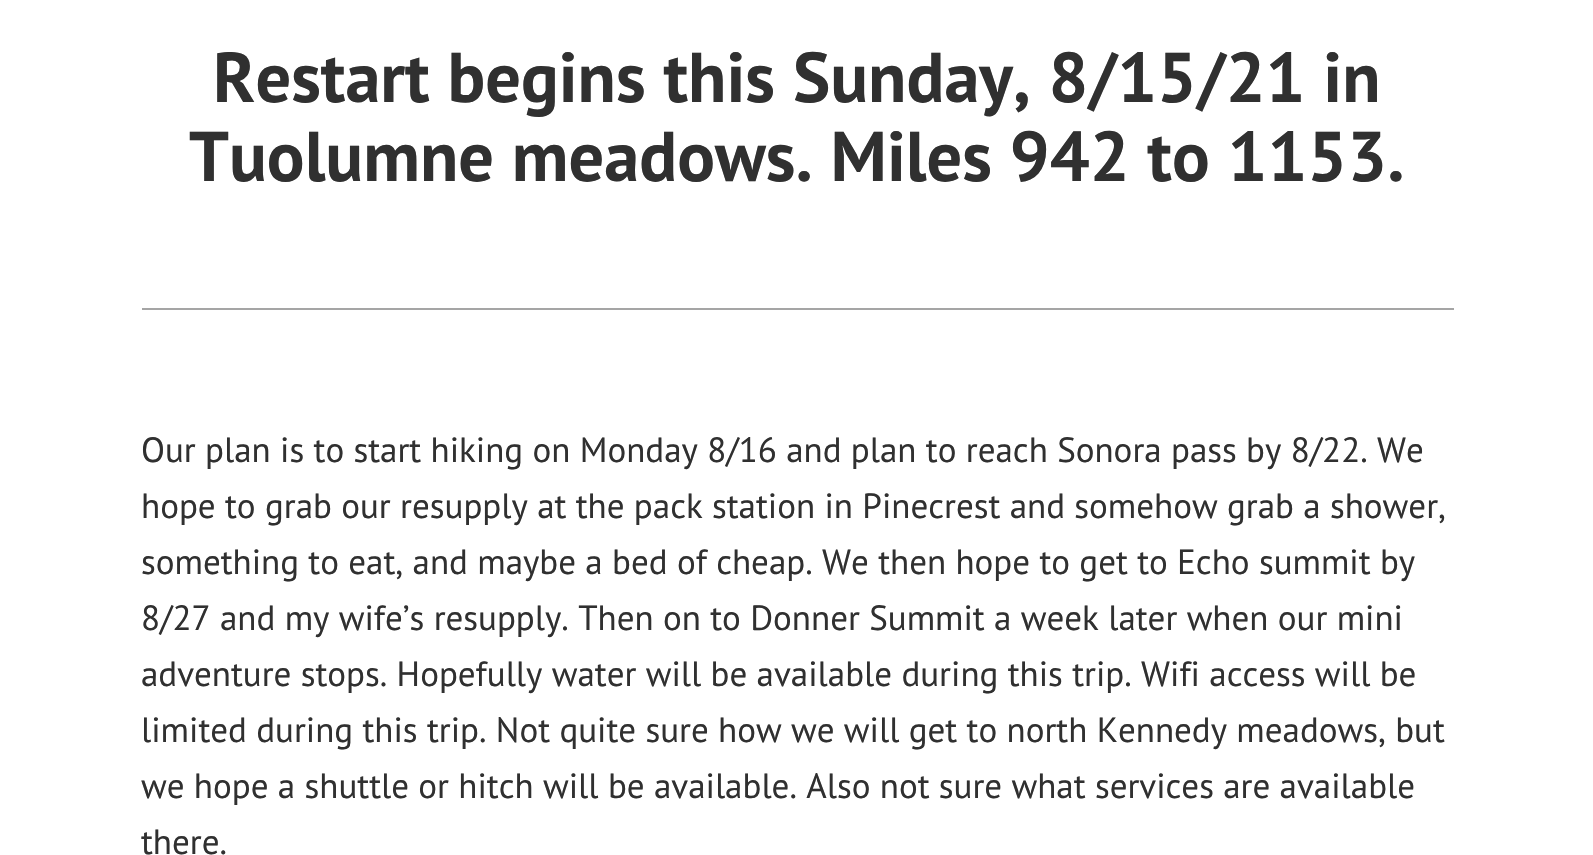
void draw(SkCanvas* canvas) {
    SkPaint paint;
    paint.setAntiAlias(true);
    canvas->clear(0xFFFFFFFF);
    SkFont font1(fontMgr->matchFamilyStyle("PT Sans", SkFontStyle::Bold()), 70.4f);
    font1.setSubpixel(true);
    paint.setColor(0xFF303030);
    canvas->drawString("Restart begins this Sunday, 8/15/21 in", 213, 102, font1, paint);
    canvas->drawString("Tuolumne meadows. Miles 942 to 1153.", 189, 181, font1, paint);
    paint.setColor(0xFFA5A5A5);
    canvas->drawRect(SkRect::MakeXYWH(142, 308, 1312, 2), paint);
    SkFont font2(fontMgr->matchFamilyStyle("PT Sans", SkFontStyle::Normal()), 35);
    font2.setSubpixel(true);
    paint.setColor(0xFF303030);
    canvas->drawString("Our plan is to start hiking on Monday 8/16 and plan to reach Sonora pass by 8/22. We", 141, 462, font2, paint);
    canvas->drawString("hope to grab our resupply at the pack station in Pinecrest and somehow grab a shower,", 141, 518, font2, paint);
    canvas->drawString("something to eat, and maybe a bed of cheap. We then hope to get to Echo summit by", 141, 574, font2, paint);
    canvas->drawString("8/27 and my wife’s resupply. Then on to Donner Summit a week later when our mini", 141, 630, font2, paint);
    canvas->drawString("adventure stops. Hopefully water will be available during this trip. Wifi access will be", 141, 686, font2, paint);
    canvas->drawString("limited during this trip. Not quite sure how we will get to north Kennedy meadows, but", 141, 742, font2, paint);
    canvas->drawString("we hope a shuttle or hitch will be available. Also not sure what services are available", 141, 798, font2, paint);
    canvas->drawString("there.", 141, 854, font2, paint);
}
